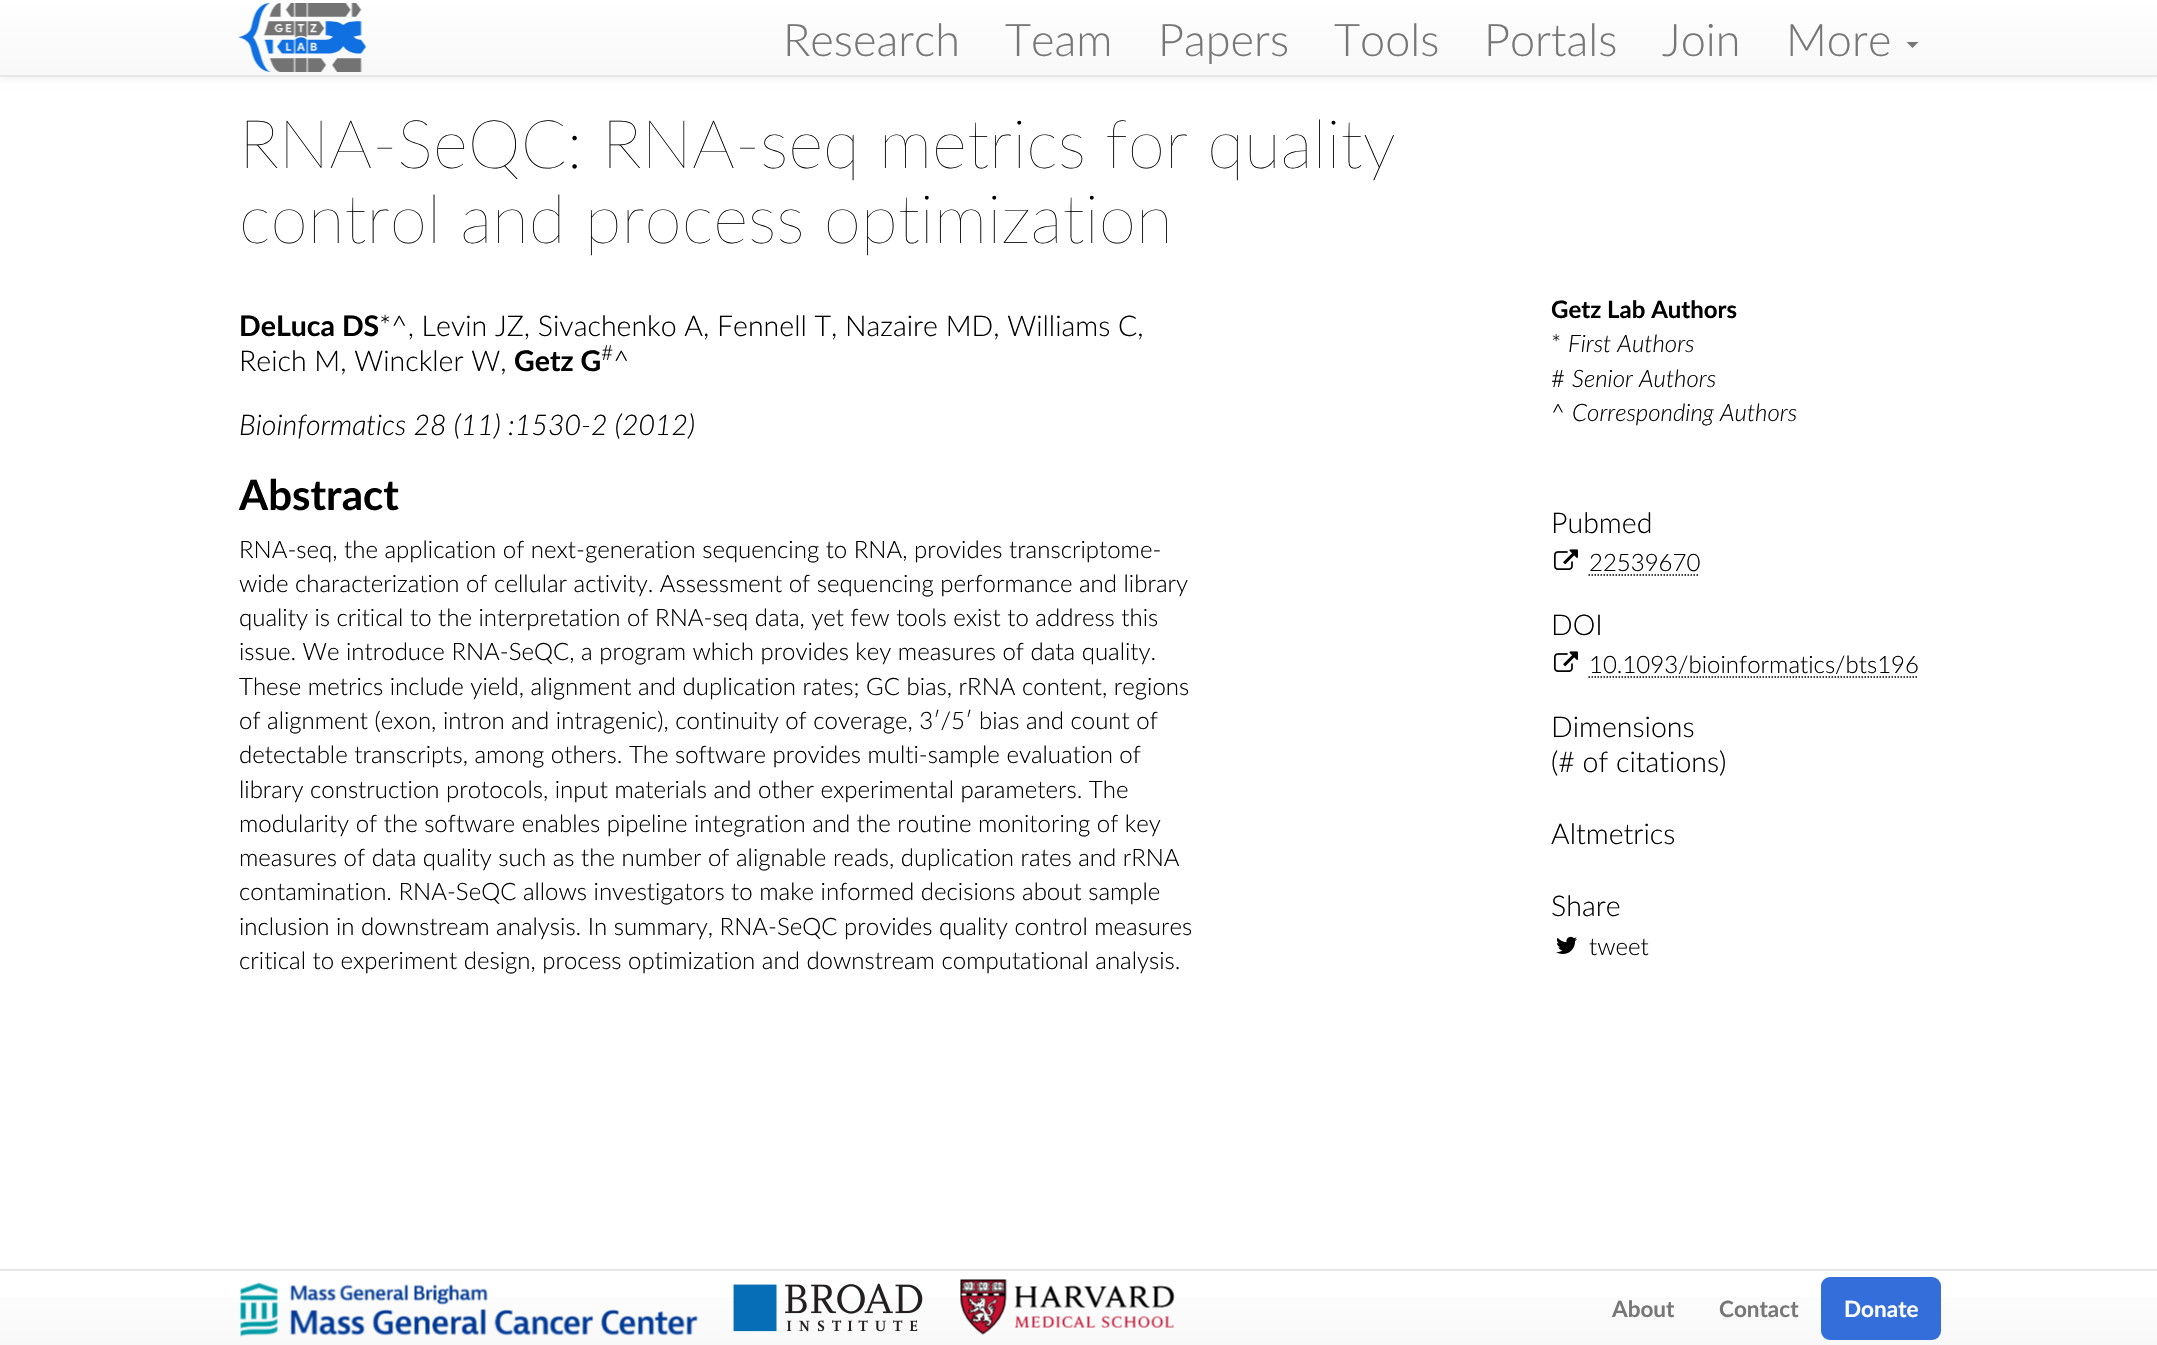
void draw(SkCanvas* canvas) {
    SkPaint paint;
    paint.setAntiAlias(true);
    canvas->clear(0xFFFFFFFF);
    paint.setColor(0x12000000);
    paint.setMaskFilter(SkMaskFilter::MakeBlur(kNormal_SkBlurStyle, 4));
    canvas->drawRect(SkRect::MakeXYWH(0, 2, 2157, 76), paint);
    paint.setMaskFilter(nullptr);
    {
        const SkColor colors[] = {0xFFFFFFFF, 0xFFF8F8F8};
        const float stops[] = {0, 1};
        const SkPoint ends[] = {{1079, 0}, {1079, 75}};
        paint.setShader(SkGradientShader::MakeLinear(ends, colors, stops, 2, SkTileMode::kClamp));
        paint.setAlpha(255);
    }
    canvas->drawRect(SkRect::MakeXYWH(0, 0, 2157, 75), paint);
    paint.setShader(nullptr);
    paint.setColor(0xFFE7E7E7);
    canvas->drawRect(SkRect::MakeXYWH(0, 75, 2157, 2), paint);
    canvas->drawImageRect(SkImages::DeferredFromEncodedData(SkData::MakeFromFileName("img1.png")), SkRect::MakeXYWH(238, 3, 129, 69), SkSamplingOptions());
    SkFont font1(fontMgr->matchFamilyStyle("Lato", SkFontStyle(300, SkFontStyle::kNormal_Width, SkFontStyle::kUpright_Slant)), 45);
    font1.setSubpixel(true);
    paint.setColor(0xFF777777);
    canvas->drawString("Research", 783, 56, font1, paint);
    canvas->drawString("Team", 1005, 56, font1, paint);
    canvas->drawString("Papers", 1158, 56, font1, paint);
    canvas->drawString("Tools", 1334, 56, font1, paint);
    canvas->drawString("Portals", 1484, 56, font1, paint);
    canvas->drawString("Join", 1662, 56, font1, paint);
    canvas->drawString("More", 1786, 56, font1, paint);
    canvas->drawPath(SkPathBuilder().moveTo(1906.5f, 42).lineTo(1918.5f, 42).lineTo(1912.5f, 48).close().detach(), paint);
    SkFont font2(fontMgr->matchFamilyStyle("Lato", SkFontStyle(200, SkFontStyle::kNormal_Width, SkFontStyle::kUpright_Slant)), 67.5f);
    font2.setSubpixel(true);
    paint.setColor(0xFF000000);
    canvas->drawString("RNA-SeQC: RNA-seq metrics for quality", 239, 168, font2, paint);
    canvas->drawString("control and process optimization", 239, 243, font2, paint);
    SkFont font3(fontMgr->matchFamilyStyle("Lato", SkFontStyle::Bold()), 28.5f);
    font3.setSubpixel(true);
    canvas->drawString("DeLuca DS", 239, 336, font3, paint);
    SkFont font4(fontMgr->matchFamilyStyle("Lato", SkFontStyle(300, SkFontStyle::kNormal_Width, SkFontStyle::kUpright_Slant)), 28.5f);
    font4.setSubpixel(true);
    canvas->drawString("*^, Levin JZ, Sivachenko A, Fennell T, Nazaire MD, Williams C,", 379, 336, font4, paint);
    canvas->drawString("Reich M, Winckler W,", 239, 371, font4, paint);
    canvas->drawString("Getz G", 514, 371, font3, paint);
    SkFont font5(fontMgr->matchFamilyStyle("Lato", SkFontStyle(300, SkFontStyle::kNormal_Width, SkFontStyle::kUpright_Slant)), 21);
    font5.setSubpixel(true);
    canvas->drawString("#", 601, 360, font5, paint);
    canvas->drawString("^", 613, 371, font4, paint);
    SkFont font6(fontMgr->matchFamilyStyle("Lato", SkFontStyle(300, SkFontStyle::kNormal_Width, SkFontStyle::kItalic_Slant)), 28.5f);
    font6.setSubpixel(true);
    canvas->drawString("Bioinformatics 28 (11) :1530-2 (2012)", 239, 435, font6, paint);
    SkFont font7(fontMgr->matchFamilyStyle("Lato", SkFontStyle::Bold()), 42);
    font7.setSubpixel(true);
    canvas->drawString("Abstract", 239, 510, font7, paint);
    SkFont font8(fontMgr->matchFamilyStyle("Lato", SkFontStyle(300, SkFontStyle::kNormal_Width, SkFontStyle::kUpright_Slant)), 24);
    font8.setSubpixel(true);
    canvas->drawString("RNA-seq, the application of next-generation sequencing to RNA, provides transcriptome-", 239, 558, font8, paint);
    canvas->drawString("wide characterization of cellular activity. Assessment of sequencing performance and library", 239, 592, font8, paint);
    canvas->drawString("quality is critical to the interpretation of RNA-seq data, yet few tools exist to address this", 239, 626, font8, paint);
    canvas->drawString("issue. We introduce RNA-SeQC, a program which provides key measures of data quality.", 239, 660, font8, paint);
    canvas->drawString("These metrics include yield, alignment and duplication rates; GC bias, rRNA content, regions", 239, 695, font8, paint);
    canvas->drawString("of alignment (exon, intron and intragenic), continuity of coverage, 3′/5′ bias and count of", 239, 729, font8, paint);
    canvas->drawString("detectable transcripts, among others. The software provides multi-sample evaluation of", 239, 763, font8, paint);
    canvas->drawString("library construction protocols, input materials and other experimental parameters. The", 239, 798, font8, paint);
    canvas->drawString("modularity of the software enables pipeline integration and the routine monitoring of key", 239, 832, font8, paint);
    canvas->drawString("measures of data quality such as the number of alignable reads, duplication rates and rRNA", 239, 866, font8, paint);
    canvas->drawString("contamination. RNA-SeQC allows investigators to make informed decisions about sample", 239, 900, font8, paint);
    canvas->drawString("inclusion in downstream analysis. In summary, RNA-SeQC provides quality control measures", 239, 935, font8, paint);
    canvas->drawString("critical to experiment design, process optimization and downstream computational analysis.", 239, 969, font8, paint);
    SkFont font9(fontMgr->matchFamilyStyle("Lato", SkFontStyle::Bold()), 24);
    font9.setSubpixel(true);
    canvas->drawString("Getz Lab Authors", 1551, 318, font9, paint);
    canvas->drawString("*", 1551, 352, font8, paint);
    SkFont font10(fontMgr->matchFamilyStyle("Lato", SkFontStyle(300, SkFontStyle::kNormal_Width, SkFontStyle::kItalic_Slant)), 24);
    font10.setSubpixel(true);
    canvas->drawString("First Authors", 1568, 352, font10, paint);
    canvas->drawString("#", 1551, 387, font8, paint);
    canvas->drawString("Senior Authors", 1572, 387, font10, paint);
    canvas->drawString("^", 1551, 421, font8, paint);
    canvas->drawString("Corresponding Authors", 1572, 421, font10, paint);
    canvas->drawString("Pubmed", 1551, 533, font4, paint);
    canvas->drawImageRect(SkImages::DeferredFromEncodedData(SkData::MakeFromFileName("img2.png")), SkRect::MakeXYWH(1554, 549, 24, 21), SkSamplingOptions());
    canvas->drawString("22539670", 1589, 571, font8, paint);
    paint.setStyle(SkPaint::kStroke_Style);
    paint.setStrokeWidth(1.5f);
    paint.setPathEffect(SkDashPathEffect::Make({{1.5f, 1.5f}}, 0));
    canvas->drawPath(SkPathBuilder().moveTo(1588.5f, 575).lineTo(1699.5f, 575).detach(), paint);
    paint.setPathEffect(nullptr);
    paint.setStyle(SkPaint::kFill_Style);
    canvas->drawString("DOI", 1551, 635, font4, paint);
    canvas->drawImageRect(SkImages::DeferredFromEncodedData(SkData::MakeFromFileName("img2.png")), SkRect::MakeXYWH(1554, 651, 24, 21), SkSamplingOptions());
    canvas->drawString("10.1093/bioinformatics/bts196", 1589, 673, font8, paint);
    paint.setStyle(SkPaint::kStroke_Style);
    paint.setPathEffect(SkDashPathEffect::Make({{1.5f, 1.5f}}, 0));
    canvas->drawPath(SkPathBuilder().moveTo(1588.5f, 677).lineTo(1918.5f, 677).detach(), paint);
    paint.setPathEffect(nullptr);
    paint.setStyle(SkPaint::kFill_Style);
    canvas->drawString("Dimensions", 1551, 737, font4, paint);
    canvas->drawString("(# of citations)", 1551, 772, font4, paint);
    canvas->drawString("Altmetrics", 1551, 844, font4, paint);
    canvas->drawString("Share", 1551, 916, font4, paint);
    canvas->drawImageRect(SkImages::DeferredFromEncodedData(SkData::MakeFromFileName("img3.png")), SkRect::MakeXYWH(1556, 936, 21, 18), SkSamplingOptions());
    canvas->drawString("tweet", 1589, 955, font8, paint);
    {
        const SkColor colors[] = {0xFFFFFFFF, 0xFFF8F8F8};
        const float stops[] = {0, 1};
        const SkPoint ends[] = {{1079, 1270}, {1079, 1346}};
        paint.setShader(SkGradientShader::MakeLinear(ends, colors, stops, 2, SkTileMode::kClamp));
        paint.setAlpha(255);
    }
    canvas->drawRect(SkRect::MakeXYWH(0, 1297, 2157, 48), paint);
    paint.setShader(nullptr);
    paint.setColor(0xFFE7E7E7);
    canvas->drawRect(SkRect::MakeXYWH(0, 1269, 2157, 2), paint);
    canvas->drawImageRect(SkImages::DeferredFromEncodedData(SkData::MakeFromFileName("img4.png")), SkRect::MakeXYWH(240, 1282, 458, 55), SkSamplingOptions());
    canvas->drawImageRect(SkImages::DeferredFromEncodedData(SkData::MakeFromFileName("img5.png")), SkRect::MakeXYWH(733, 1283, 190, 49), SkSamplingOptions());
    canvas->drawImageRect(SkImages::DeferredFromEncodedData(SkData::MakeFromFileName("img6.png")), SkRect::MakeXYWH(960, 1279, 215, 56), SkSamplingOptions());
    SkFont font11(fontMgr->matchFamilyStyle("Lato", SkFontStyle::Bold()), 22.5f);
    font11.setSubpixel(true);
    paint.setColor(0xFF777777);
    canvas->drawString("About", 1612, 1317, font11, paint);
    canvas->drawString("Contact", 1719, 1317, font11, paint);
    paint.setColor(0xFF336EDA);
    canvas->drawRoundRect(SkRect::MakeXYWH(1821, 1277, 120, 63), 9, 9, paint);
    paint.setColor(0xFFFFFFFF);
    canvas->drawString("Donate", 1844, 1317, font11, paint);
}
